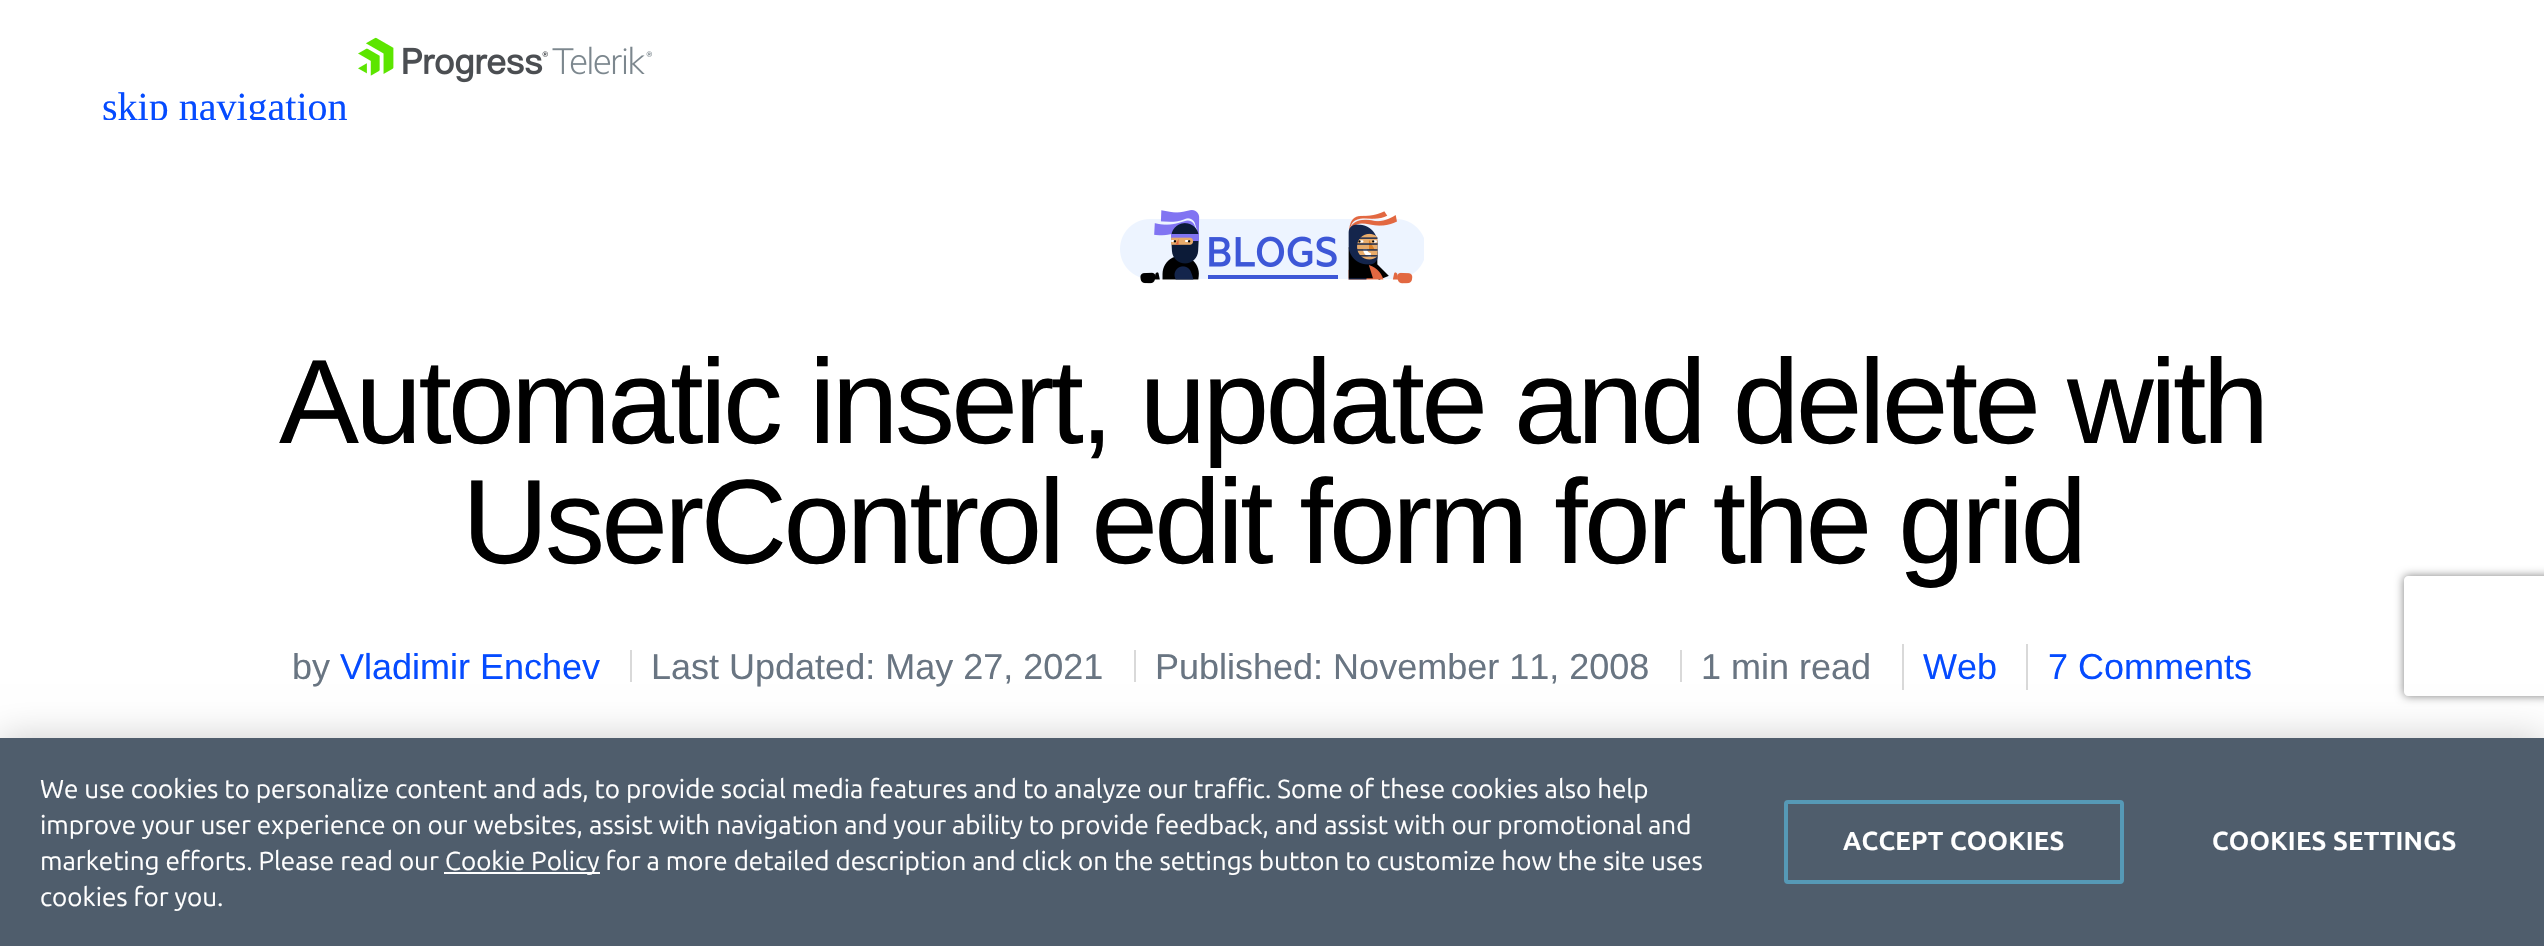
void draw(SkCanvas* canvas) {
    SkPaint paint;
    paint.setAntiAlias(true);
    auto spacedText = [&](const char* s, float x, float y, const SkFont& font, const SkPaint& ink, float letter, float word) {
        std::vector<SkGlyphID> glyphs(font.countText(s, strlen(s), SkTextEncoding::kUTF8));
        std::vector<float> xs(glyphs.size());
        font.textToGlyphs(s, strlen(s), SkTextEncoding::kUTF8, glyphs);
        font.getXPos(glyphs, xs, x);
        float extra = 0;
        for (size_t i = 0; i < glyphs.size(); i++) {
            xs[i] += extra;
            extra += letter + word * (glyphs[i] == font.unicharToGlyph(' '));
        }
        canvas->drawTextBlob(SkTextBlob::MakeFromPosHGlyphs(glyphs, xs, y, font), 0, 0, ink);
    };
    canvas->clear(0xFFFFFFFF);
    canvas->drawImageRect(SkImages::DeferredFromEncodedData(SkData::MakeFromFileName("img1.png")), SkRect::MakeXYWH(358, 37, 294, 46), SkSamplingOptions());
    canvas->save();
    canvas->clipRect(SkRect::MakeXYWH(0, 0, 2544, 120));
    SkFont font1(fontMgr->matchFamilyStyle("Liberation Serif", SkFontStyle::Normal()), 40);
    font1.setSubpixel(true);
    paint.setColor(0xFF054BFF);
    canvas->drawString("skip navigation", 102, 120, font1, paint);
    canvas->restore();
    canvas->drawImageRect(SkImages::DeferredFromEncodedData(SkData::MakeFromFileName("img2.png")), SkRect::MakeXYWH(1120, 210, 304, 74), SkSamplingOptions());
    SkFont font2(fontMgr->matchFamilyStyle("Liberation Sans", SkFontStyle::Normal()), 120);
    font2.setSubpixel(true);
    paint.setColor(0xFF000000);
    spacedText("Automatic insert, update and delete with", 279, 443, font2, paint, -3.7f, 0);
    spacedText("UserControl edit form for the grid", 462, 563, font2, paint, -3.7f, 0);
    SkFont font3(fontMgr->matchFamilyStyle("Liberation Sans", SkFontStyle::Normal()), 36);
    font3.setSubpixel(true);
    paint.setColor(0xFF697582);
    canvas->drawString("by", 292, 679, font3, paint);
    paint.setColor(0xFF054BFF);
    canvas->drawString("Vladimir Enchev", 340, 679, font3, paint);
    paint.setColor(0xFFD9D9D9);
    canvas->drawRect(SkRect::MakeXYWH(630, 650, 2, 32), paint);
    paint.setColor(0xFF697582);
    canvas->drawString("Last Updated: May 27, 2021", 651, 679, font3, paint);
    paint.setColor(0xFFD9D9D9);
    canvas->drawRect(SkRect::MakeXYWH(1134, 650, 2, 32), paint);
    paint.setColor(0xFF697582);
    canvas->drawString("Published: November 11, 2008", 1155, 679, font3, paint);
    paint.setColor(0xFFD9D9D9);
    canvas->drawRect(SkRect::MakeXYWH(1680, 650, 2, 32), paint);
    paint.setColor(0xFF697582);
    canvas->drawString("1 min read", 1701, 679, font3, paint);
    paint.setColor(0xFFD9D9D9);
    canvas->drawRect(SkRect::MakeXYWH(1902, 644, 2, 46), paint);
    paint.setColor(0xFF054BFF);
    canvas->drawString("Web", 1923, 679, font3, paint);
    paint.setColor(0xFFD9D9D9);
    canvas->drawRect(SkRect::MakeXYWH(2026, 644, 2, 46), paint);
    paint.setColor(0xFF054BFF);
    canvas->drawString("7 Comments", 2048, 679, font3, paint);
    canvas->save();
    canvas->clipPath(SkPathBuilder(SkPathFillType::kEvenOdd).moveTo(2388, 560).lineTo(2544, 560).lineTo(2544, 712).lineTo(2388, 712).close().moveTo(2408, 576).lineTo(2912, 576).cubicTo(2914, 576, 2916, 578, 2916, 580).lineTo(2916, 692).cubicTo(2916, 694, 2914, 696, 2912, 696).lineTo(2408, 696).cubicTo(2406, 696, 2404, 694, 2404, 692).lineTo(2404, 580).cubicTo(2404, 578, 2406, 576, 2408, 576).close().detach(), true);
    paint.setColor(0xFF808080);
    paint.setMaskFilter(SkMaskFilter::MakeBlur(kNormal_SkBlurStyle, 5));
    canvas->drawRoundRect(SkRect::MakeXYWH(2404, 576, 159, 120), 4, 4, paint);
    paint.setMaskFilter(nullptr);
    canvas->restore();
    paint.setColor(0x33000000);
    paint.setMaskFilter(SkMaskFilter::MakeBlur(kNormal_SkBlurStyle, 18));
    canvas->drawRect(SkRect::MakeXYWH(0, 738, 2544, 208), paint);
    paint.setMaskFilter(nullptr);
    paint.setColor(0xFF4F5D6C);
    canvas->drawRect(SkRect::MakeXYWH(0, 738, 2544, 208), paint);
    SkFont font4(fontMgr->matchFamilyStyle("Ubuntu", SkFontStyle::Normal()), 26);
    font4.setSubpixel(true);
    paint.setColor(0xFFFFFFFF);
    canvas->drawString("We use cookies to personalize content and ads, to provide social media features and to analyze our traffic. Some of these cookies also help", 40, 798, font4, paint);
    canvas->drawString("improve your user experience on our websites, assist with navigation and your ability to provide feedback, and assist with our promotional and", 40, 834, font4, paint);
    canvas->drawString("marketing efforts. Please read our", 40, 870, font4, paint);
    canvas->drawRect(SkRect::MakeXYWH(444, 872, 156, 2), paint);
    canvas->drawString("Cookie Policy for a more detailed description and click on the settings button to customize how the site uses", 445, 870, font4, paint);
    canvas->drawString("cookies for you.", 40, 906, font4, paint);
    paint.setStyle(SkPaint::kStroke_Style);
    paint.setStrokeWidth(4);
    paint.setColor(0xFF5699B6);
    canvas->drawRoundRect(SkRect::MakeXYWH(1786, 802, 336, 80), 2, 2, paint);
    SkFont font5(fontMgr->matchFamilyStyle("Ubuntu", SkFontStyle::Bold()), 26);
    font5.setSubpixel(true);
    paint.setStyle(SkPaint::kFill_Style);
    paint.setColor(0xFFFFFFFF);
    spacedText("ACCEPT COOKIES", 1843, 850, font5, paint, 0.25f, 0);
    spacedText("COOKIES SETTINGS", 2212, 850, font5, paint, 0.25f, 0);
}
